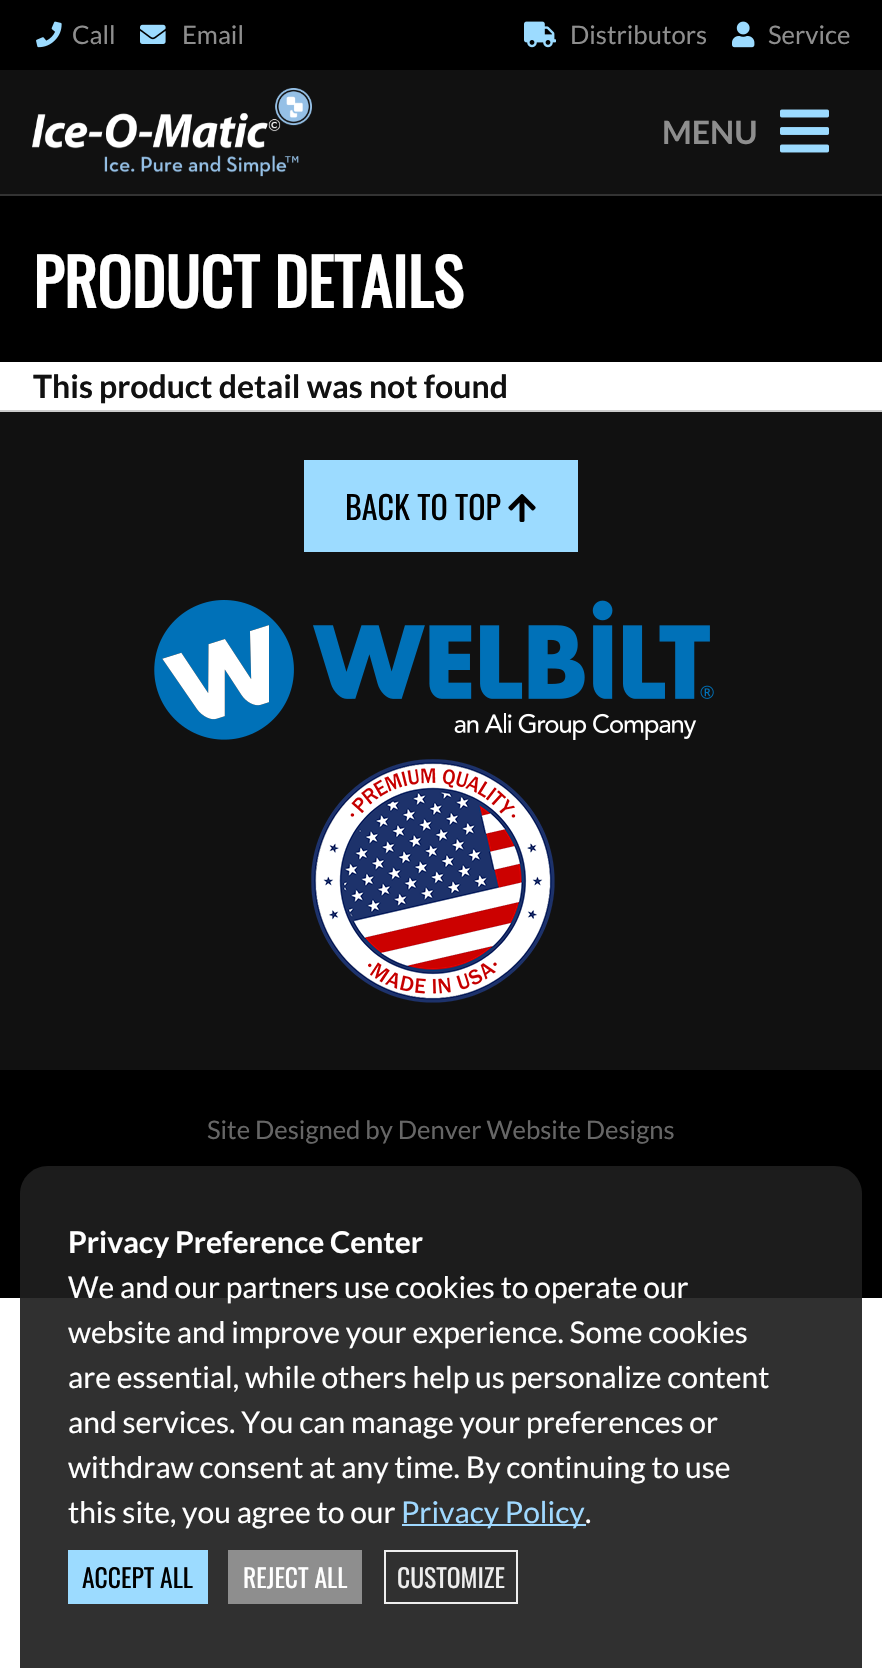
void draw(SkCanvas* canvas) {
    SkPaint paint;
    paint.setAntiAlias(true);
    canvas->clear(0xFFFFFFFF);
    paint.setColor(0xFF111111);
    canvas->drawRect(SkRect::MakeXYWH(0, 70, 882, 124), paint);
    paint.setColor(0xFF333333);
    canvas->drawRect(SkRect::MakeXYWH(0, 194, 882, 2), paint);
    paint.setColor(0xFF000000);
    canvas->drawRect(SkRect::MakeXYWH(0, 0, 882, 70), paint);
    canvas->drawImageRect(SkImages::DeferredFromEncodedData(SkData::MakeFromFileName("img1.png")), SkRect::MakeXYWH(36, 21, 26, 27), SkSamplingOptions());
    SkFont font1(fontMgr->matchFamilyStyle("Lato", SkFontStyle::Normal()), 25.6f);
    font1.setSubpixel(true);
    paint.setColor(0xFF8E8E8E);
    canvas->drawString("Call", 72, 44, font1, paint);
    canvas->drawImageRect(SkImages::DeferredFromEncodedData(SkData::MakeFromFileName("img2.png")), SkRect::MakeXYWH(140, 24, 26, 20), SkSamplingOptions());
    canvas->drawString("Email", 182, 44, font1, paint);
    canvas->drawImageRect(SkImages::DeferredFromEncodedData(SkData::MakeFromFileName("img3.png")), SkRect::MakeXYWH(524, 21, 32, 27), SkSamplingOptions());
    canvas->drawString("Distributors", 570, 44, font1, paint);
    canvas->drawImageRect(SkImages::DeferredFromEncodedData(SkData::MakeFromFileName("img4.png")), SkRect::MakeXYWH(732, 21, 23, 27), SkSamplingOptions());
    canvas->drawString("Service", 768, 44, font1, paint);
    canvas->drawImageRect(SkImages::DeferredFromEncodedData(SkData::MakeFromFileName("img5.png")), SkRect::MakeXYWH(32, 88, 280, 89), SkSamplingOptions());
    SkFont font2(fontMgr->matchFamilyStyle("Lato", SkFontStyle::Bold()), 32);
    font2.setSubpixel(true);
    canvas->drawString("MENU", 662, 144, font2, paint);
    canvas->drawImageRect(SkImages::DeferredFromEncodedData(SkData::MakeFromFileName("img6.png")), SkRect::MakeXYWH(780, 109, 49, 44), SkSamplingOptions());
    paint.setColor(0xFF000000);
    canvas->drawRect(SkRect::MakeXYWH(0, 196, 882, 166), paint);
    SkFont font3(fontMgr->matchFamilyStyle("Oswald", SkFontStyle::Bold()), 64);
    font3.setSubpixel(true);
    paint.setColor(0xFFFFFFFF);
    canvas->drawString("PRODUCT DETAILS", 33, 308, font3, paint);
    paint.setColor(0xFF111111);
    canvas->drawString("This product detail was not found", 33, 398, font2, paint);
    canvas->drawRect(SkRect::MakeXYWH(0, 412, 882, 658), paint);
    paint.setColor(0xFFCCCCCC);
    canvas->drawRect(SkRect::MakeXYWH(0, 410, 882, 2), paint);
    paint.setColor(0xFF9CDBFF);
    canvas->drawRect(SkRect::MakeXYWH(304, 460, 274, 92), paint);
    SkFont font4(fontMgr->matchFamilyStyle("Oswald", SkFontStyle::Normal()), 32);
    font4.setSubpixel(true);
    paint.setColor(0xFF000000);
    canvas->drawString("BACK TO TOP", 345, 520, font4, paint);
    canvas->drawImageRect(SkImages::DeferredFromEncodedData(SkData::MakeFromFileName("img7.png")), SkRect::MakeXYWH(508, 494, 28, 28), SkSamplingOptions());
    canvas->drawImageRect(SkImages::DeferredFromEncodedData(SkData::MakeFromFileName("img8.png")), SkRect::MakeXYWH(154, 600, 560, 140), SkSamplingOptions());
    canvas->drawImageRect(SkImages::DeferredFromEncodedData(SkData::MakeFromFileName("img9.png")), SkRect::MakeXYWH(311, 759, 244, 244), SkSamplingOptions());
    canvas->drawRect(SkRect::MakeXYWH(0, 1070, 882, 228), paint);
    paint.setColor(0xFF666666);
    canvas->drawString("Site Designed by Denver Website Designs", 207, 1139, font1, paint);
    paint.setColor(0xEB1E1E1E);
    canvas->drawPath(SkPathBuilder().moveTo(48, 1166).lineTo(834, 1166).cubicTo(849.5f, 1166, 862, 1178.5f, 862, 1194).lineTo(862, 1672).lineTo(20, 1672).lineTo(20, 1194).cubicTo(20, 1178.5f, 32.5f, 1166, 48, 1166).close().detach(), paint);
    SkFont font5(fontMgr->matchFamilyStyle("Lato", SkFontStyle::Bold()), 30);
    font5.setSubpixel(true);
    paint.setColor(0xFFFFFFFF);
    canvas->drawString("Privacy Preference Center", 68, 1253, font5, paint);
    SkFont font6(fontMgr->matchFamilyStyle("Lato", SkFontStyle::Normal()), 30);
    font6.setSubpixel(true);
    canvas->drawString("We and our partners use cookies to operate our", 68, 1298, font6, paint);
    canvas->drawString("website and improve your experience. Some cookies", 68, 1343, font6, paint);
    canvas->drawString("are essential, while others help us personalize content", 68, 1388, font6, paint);
    canvas->drawString("and services. You can manage your preferences or", 68, 1433, font6, paint);
    canvas->drawString("withdraw consent at any time. By continuing to use", 68, 1478, font6, paint);
    canvas->drawString("this site, you agree to our", 68, 1523, font6, paint);
    paint.setColor(0xFF9FD8FF);
    canvas->drawRect(SkRect::MakeXYWH(402, 1524, 184, 2), paint);
    canvas->drawString("Privacy Policy", 401, 1523, font6, paint);
    paint.setColor(0xFFFFFFFF);
    canvas->drawString(".", 585, 1523, font6, paint);
    paint.setColor(0xFF9CDBFF);
    canvas->drawRect(SkRect::MakeXYWH(68, 1550, 140, 54), paint);
    SkFont font7(fontMgr->matchFamilyStyle("Oswald", SkFontStyle::Normal()), 25.6f);
    font7.setSubpixel(true);
    paint.setColor(0xFF000000);
    canvas->drawString("ACCEPT ALL", 82, 1588, font7, paint);
    paint.setColor(0xFF8E8E8E);
    canvas->drawRect(SkRect::MakeXYWH(228, 1550, 134, 54), paint);
    paint.setColor(0xFFFFFFFF);
    canvas->drawString("REJECT ALL", 243, 1588, font7, paint);
    paint.setStyle(SkPaint::kStroke_Style);
    paint.setStrokeWidth(2);
    paint.setColor(0xFFEEEEEE);
    canvas->drawRect(SkRect::MakeXYWH(385, 1551, 132, 52), paint);
    paint.setStyle(SkPaint::kFill_Style);
    canvas->drawString("CUSTOMIZE", 397, 1588, font7, paint);
}
